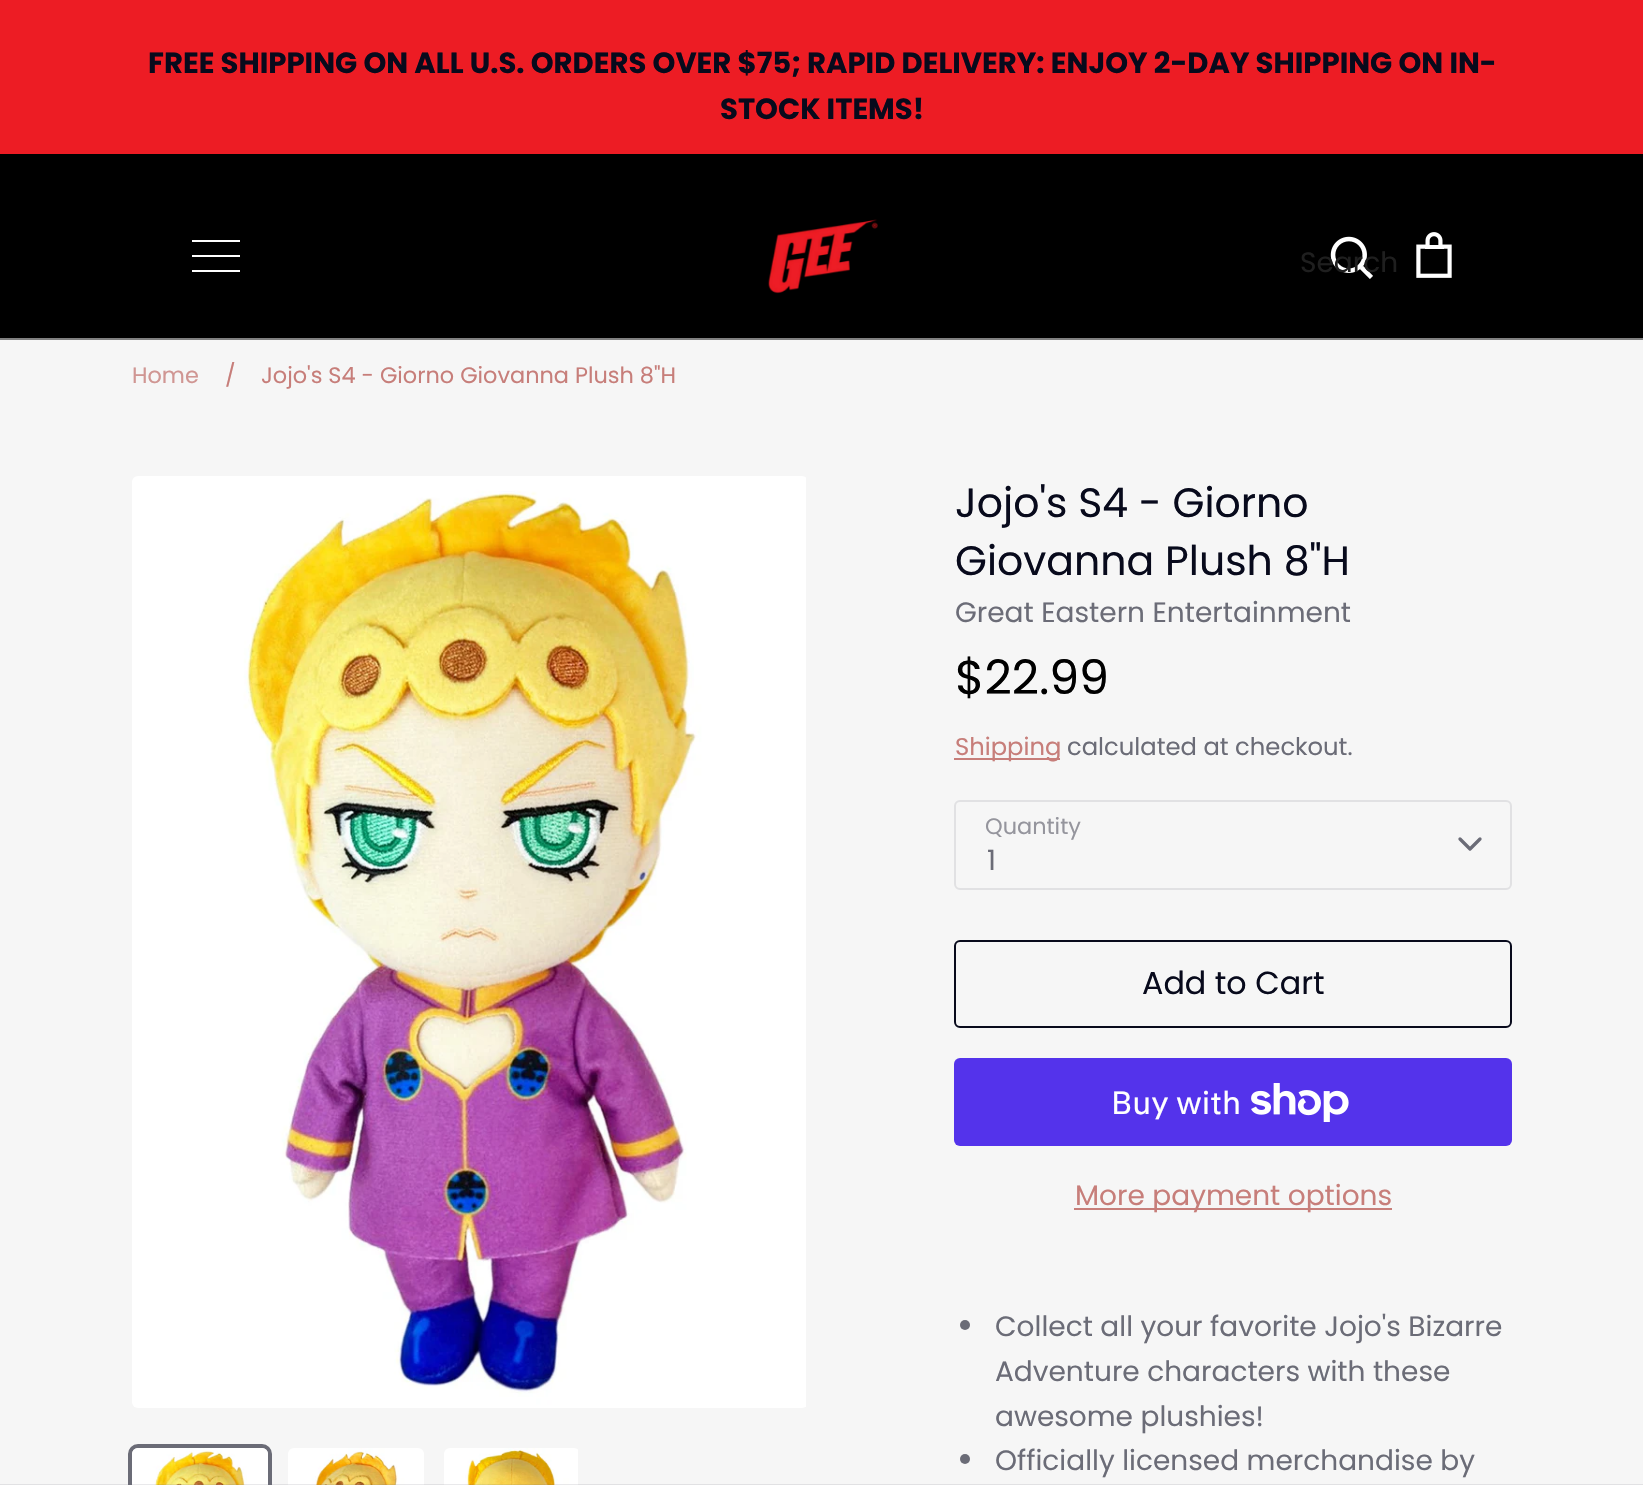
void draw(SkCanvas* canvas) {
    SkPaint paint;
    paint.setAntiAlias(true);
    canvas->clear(0xFFED1C24);
    SkFont font1(fontMgr->matchFamilyStyle("Poppins", SkFontStyle::Bold()), 29.1f);
    font1.setSubpixel(true);
    paint.setColor(0xFF080A1C);
    canvas->drawString("FREE SHIPPING ON ALL U.S. ORDERS OVER $75;", 148, 73, font1, paint);
    canvas->drawString("RAPID DELIVERY: ENJOY 2-DAY SHIPPING ON IN-", 807, 73, font1, paint);
    canvas->drawString("STOCK ITEMS!", 720, 119, font1, paint);
    paint.setColor(0xFF000000);
    canvas->drawRect(SkRect::MakeXYWH(0, 154, 1643, 184), paint);
    paint.setColor(0xFF808080);
    canvas->drawRect(SkRect::MakeXYWH(0, 338, 1643, 2), paint);
    paint.setColor(0xFFFFFFFF);
    canvas->drawRect(SkRect::MakeXYWH(192, 240, 48, 2), paint);
    canvas->drawRect(SkRect::MakeXYWH(192, 255, 48, 2), paint);
    canvas->drawRect(SkRect::MakeXYWH(192, 270, 48, 2), paint);
    canvas->drawImageRect(SkImages::DeferredFromEncodedData(SkData::MakeFromFileName("img1.png")), SkRect::MakeXYWH(768, 219, 110, 75), SkSamplingOptions());
    canvas->drawImageRect(SkImages::DeferredFromEncodedData(SkData::MakeFromFileName("img2.png")), SkRect::MakeXYWH(1330, 236, 43, 43), SkSamplingOptions());
    SkFont font2(fontMgr->matchFamilyStyle("Poppins", SkFontStyle::Normal()), 28);
    font2.setSubpixel(true);
    paint.setColor(0xFF1F1F1F);
    canvas->drawString("Search", 1300, 272, font2, paint);
    canvas->drawImageRect(SkImages::DeferredFromEncodedData(SkData::MakeFromFileName("img3.png")), SkRect::MakeXYWH(1416, 232, 36, 46), SkSamplingOptions());
    paint.setColor(0xFFF6F6F6);
    canvas->drawRect(SkRect::MakeXYWH(0, 340, 1643, 1145), paint);
    paint.setStyle(SkPaint::kStroke_Style);
    paint.setStrokeWidth(4);
    paint.setColor(0xFF6B6C77);
    canvas->drawRoundRect(SkRect::MakeXYWH(130, 1446, 140, 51), 8, 8, paint);
    canvas->drawImageRect(SkImages::DeferredFromEncodedData(SkData::MakeFromFileName("img5.png")), SkRect::MakeXYWH(132, 1448, 136, 37), SkSamplingOptions());
    canvas->drawImageRect(SkImages::DeferredFromEncodedData(SkData::MakeFromFileName("img6.png")), SkRect::MakeXYWH(288, 1448, 136, 37), SkSamplingOptions());
    canvas->drawImageRect(SkImages::DeferredFromEncodedData(SkData::MakeFromFileName("img7.png")), SkRect::MakeXYWH(444, 1448, 134, 37), SkSamplingOptions());
    paint.setStyle(SkPaint::kFill_Style);
    paint.setColor(0x266B6C77);
    canvas->drawRect(SkRect::MakeXYWH(0, 1484, 1643, 1), paint);
    SkFont font3(fontMgr->matchFamilyStyle("Poppins", SkFontStyle::Normal()), 22.4f);
    font3.setSubpixel(true);
    paint.setColor(0xFFD09693);
    canvas->drawString("Home", 132, 383, font3, paint);
    paint.setColor(0xFFC77E7A);
    canvas->drawString("/", 225, 383, font3, paint);
    canvas->drawString("Jojo's S4 - Giorno Giovanna Plush 8\"H", 261, 383, font3, paint);
    canvas->drawImageRect(SkImages::DeferredFromEncodedData(SkData::MakeFromFileName("img4.png")), SkRect::MakeXYWH(132, 476, 674, 932), SkSamplingOptions());
    SkFont font4(fontMgr->matchFamilyStyle("Poppins", SkFontStyle::Normal()), 41);
    font4.setSubpixel(true);
    paint.setColor(0xFF080A1C);
    canvas->drawString("Jojo's S4 - Giorno", 955, 517, font4, paint);
    canvas->drawString("Giovanna Plush 8\"H", 955, 575, font4, paint);
    paint.setColor(0xFF6B6C77);
    canvas->drawString("Great Eastern Entertainment", 955, 622, font2, paint);
    SkFont font5(fontMgr->matchFamilyStyle("Poppins", SkFontStyle::Normal()), 47.5f);
    font5.setSubpixel(true);
    paint.setColor(0xFF000000);
    canvas->drawString("$22.99", 955, 694, font5, paint);
    paint.setColor(0xFFC77E7A);
    canvas->drawRect(SkRect::MakeXYWH(954, 758, 106, 2), paint);
    SkFont font6(fontMgr->matchFamilyStyle("Poppins", SkFontStyle::Normal()), 24.25f);
    font6.setSubpixel(true);
    canvas->drawString("Shipping", 955, 755, font6, paint);
    paint.setColor(0xFF6B6C77);
    canvas->drawString("calculated at checkout.", 1067, 755, font6, paint);
    paint.setColor(0xFF95959D);
    canvas->drawString("Quantity", 985, 834, font3, paint);
    paint.setStyle(SkPaint::kStroke_Style);
    paint.setStrokeWidth(2);
    paint.setColor(0xFFE1E1E3);
    canvas->drawRoundRect(SkRect::MakeXYWH(955, 801, 556, 88), 5, 5, paint);
    paint.setStrokeWidth(3.3f);
    paint.setStrokeCap(SkPaint::kRound_Cap);
    paint.setStrokeJoin(SkPaint::kRound_Join);
    paint.setColor(0xFF6B6C77);
    canvas->drawPath(SkPathBuilder().moveTo(1460, 839).lineTo(1470, 849).lineTo(1480, 839).detach(), paint);
    paint.setStyle(SkPaint::kFill_Style);
    canvas->drawString("1", 987, 870, font2, paint);
    paint.setStyle(SkPaint::kStroke_Style);
    paint.setStrokeWidth(2);
    paint.setStrokeCap(SkPaint::kButt_Cap);
    paint.setStrokeJoin(SkPaint::kMiter_Join);
    paint.setColor(0xFF080A1C);
    canvas->drawRoundRect(SkRect::MakeXYWH(955, 941, 556, 86), 5, 5, paint);
    SkFont font7(fontMgr->matchFamilyStyle("Poppins", SkFontStyle::Normal()), 31.75f);
    font7.setSubpixel(true);
    paint.setStyle(SkPaint::kFill_Style);
    canvas->drawString("Add to Cart", 1142, 994, font7, paint);
    paint.setColor(0xFF5433EB);
    canvas->drawRoundRect(SkRect::MakeXYWH(954, 1058, 558, 88), 6, 6, paint);
    SkFont font8(fontMgr->matchFamilyStyle("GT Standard", SkFontStyle::Normal()), 32);
    font8.setSubpixel(true);
    paint.setColor(0xFFFFFFFF);
    canvas->drawString("Buy with", 1111, 1114, font8, paint);
    canvas->drawImageRect(SkImages::DeferredFromEncodedData(SkData::MakeFromFileName("img8.png")), SkRect::MakeXYWH(1251, 1083, 98, 39), SkSamplingOptions());
    paint.setColor(0xFFC77E7A);
    canvas->drawRect(SkRect::MakeXYWH(1074, 1208, 318, 2), paint);
    canvas->drawString("More payment options", 1075, 1205, font2, paint);
    paint.setColor(0xFF6B6C77);
    canvas->drawCircle(965, 1325, 5, paint);
    canvas->drawString("Collect all your favorite Jojo's Bizarre", 995, 1336, font2, paint);
    canvas->drawString("Adventure characters with these", 995, 1381, font2, paint);
    canvas->drawString("awesome plushies!", 995, 1426, font2, paint);
    canvas->drawCircle(965, 1459, 5, paint);
    canvas->drawString("Officially licensed merchandise by", 995, 1470, font2, paint);
}
